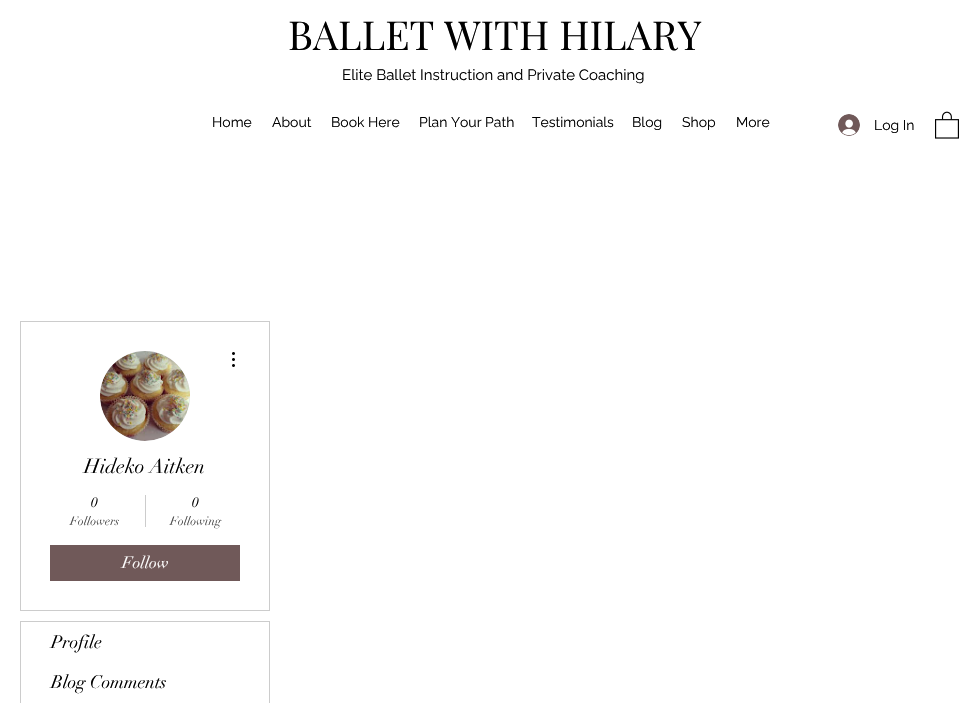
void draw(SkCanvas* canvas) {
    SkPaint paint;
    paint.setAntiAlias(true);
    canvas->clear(0xFFFFFFFF);
    SkFont font1(fontMgr->matchFamilyStyle("Playfair Display", SkFontStyle::Normal()), 40);
    font1.setSubpixel(true);
    paint.setColor(0xFF000000);
    canvas->drawString("BALLET WITH HILARY", 288, 50, font1, paint);
    SkFont font2(fontMgr->matchFamilyStyle("Raleway", SkFontStyle::Normal()), 15);
    font2.setSubpixel(true);
    canvas->drawString("Elite Ballet Instruction and Private Coaching", 342, 80, font2, paint);
    SkFont font3(fontMgr->matchFamilyStyle("Raleway", SkFontStyle::Normal()), 14);
    font3.setSubpixel(true);
    canvas->drawString("Home", 212, 127, font3, paint);
    canvas->drawString("About", 272, 127, font3, paint);
    canvas->drawString("Book Here", 331, 127, font3, paint);
    canvas->drawString("Plan Your Path", 419, 127, font3, paint);
    canvas->drawString("Testimonials", 532, 127, font3, paint);
    canvas->drawString("Blog", 632, 127, font3, paint);
    canvas->drawString("Shop", 682, 127, font3, paint);
    canvas->drawString("More", 736, 127, font3, paint);
    canvas->drawImageRect(SkImages::DeferredFromEncodedData(SkData::MakeFromFileName("img1.png")), SkRect::MakeXYWH(838, 114, 22, 22), SkSamplingOptions());
    canvas->drawString("Log In", 874, 130, font3, paint);
    canvas->drawImageRect(SkImages::DeferredFromEncodedData(SkData::MakeFromFileName("img2.png")), SkRect::MakeXYWH(935, 111, 24, 28), SkSamplingOptions());
    paint.setStyle(SkPaint::kStroke_Style);
    paint.setStrokeWidth(1);
    paint.setColor(0xFFCCCCCC);
    canvas->drawRect(SkRect::MakeXYWH(20.5f, 321.5f, 249, 289), paint);
    paint.setStyle(SkPaint::kFill_Style);
    paint.setColor(0xFFD8D8D8);
    canvas->drawCircle(145, 396, 45, paint);
    canvas->drawImageRect(SkImages::DeferredFromEncodedData(SkData::MakeFromFileName("img3.png")), SkRect::MakeXYWH(100, 351, 90, 90), SkSamplingOptions());
    canvas->drawImageRect(SkImages::DeferredFromEncodedData(SkData::MakeFromFileName("img4.png")), SkRect::MakeXYWH(232, 352, 3, 15), SkSamplingOptions());
    SkFont font4(fontMgr->matchFamilyStyle("didot", SkFontStyle::Normal()), 20);
    font4.setSubpixel(true);
    paint.setColor(0xFF000000);
    canvas->drawString("Hideko Aitken", 84, 473, font4, paint);
    SkFont font5(fontMgr->matchFamilyStyle("didot", SkFontStyle::Normal()), 14);
    font5.setSubpixel(true);
    canvas->drawString("0", 91, 507, font5, paint);
    SkFont font6(fontMgr->matchFamilyStyle("didot", SkFontStyle::Normal()), 12);
    font6.setSubpixel(true);
    paint.setColor(0xFF4D4D4D);
    canvas->drawString("Followers", 70, 525, font6, paint);
    paint.setColor(0xFFCCCCCC);
    canvas->drawRect(SkRect::MakeXYWH(145, 495, 1, 32), paint);
    paint.setColor(0xFF000000);
    canvas->drawString("0", 192, 507, font5, paint);
    paint.setColor(0xFF4D4D4D);
    canvas->drawString("Following", 170, 525, font6, paint);
    paint.setColor(0xFF705959);
    canvas->drawRect(SkRect::MakeXYWH(50, 545, 190, 36), paint);
    SkFont font7(fontMgr->matchFamilyStyle("didot", SkFontStyle::Normal()), 16);
    font7.setSubpixel(true);
    paint.setColor(0xFFFFFFFF);
    canvas->drawString("Follow", 122, 568, font7, paint);
    paint.setStyle(SkPaint::kStroke_Style);
    paint.setColor(0xFFCCCCCC);
    canvas->drawRect(SkRect::MakeXYWH(20.5f, 621.5f, 249, 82), paint);
    SkFont font8(fontMgr->matchFamilyStyle("didot", SkFontStyle::Normal()), 18);
    font8.setSubpixel(true);
    paint.setStyle(SkPaint::kFill_Style);
    paint.setColor(0xFF000000);
    canvas->drawString("Profile", 51, 648, font8, paint);
    canvas->drawString("Blog Comments", 51, 688, font8, paint);
}
